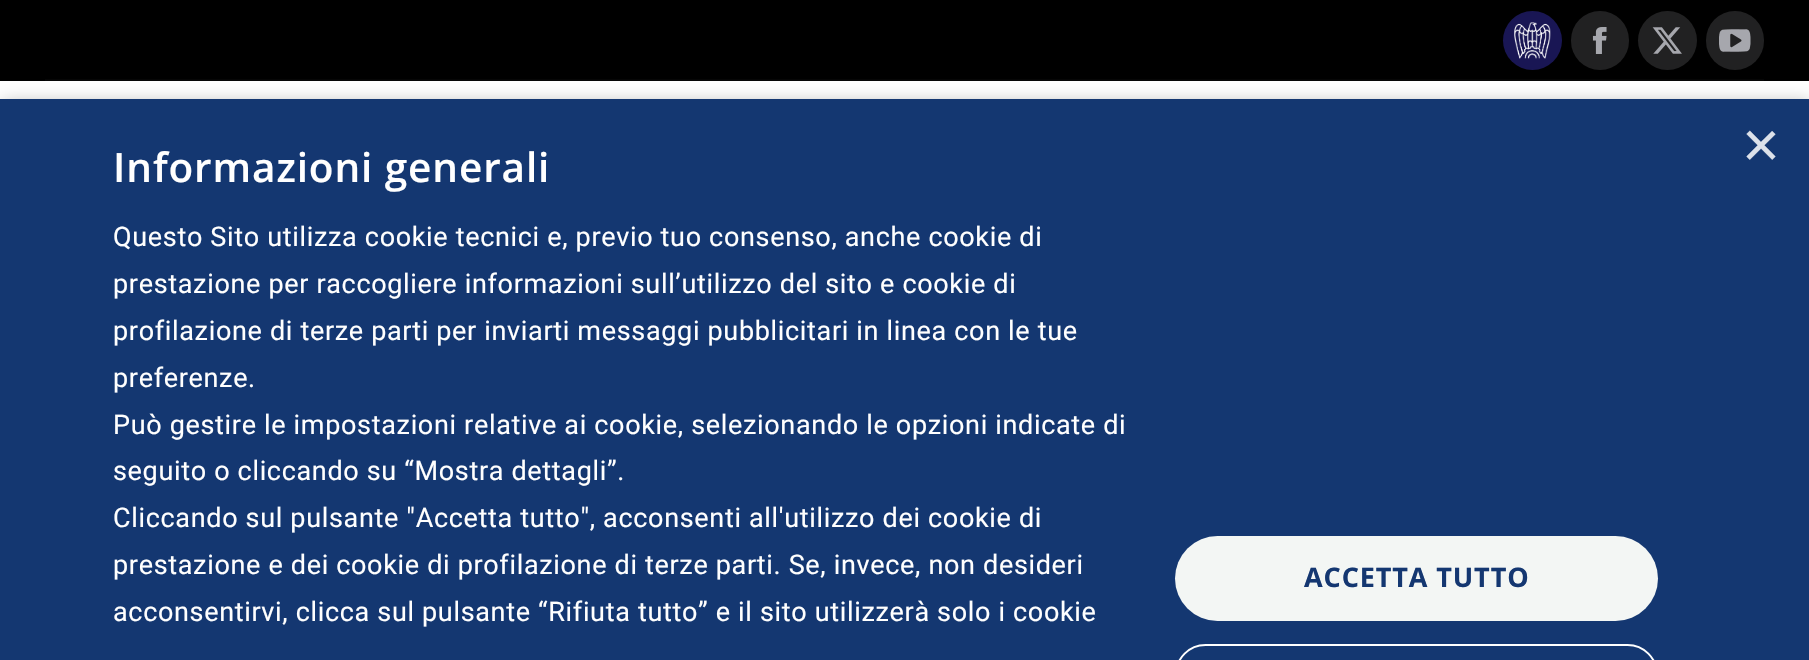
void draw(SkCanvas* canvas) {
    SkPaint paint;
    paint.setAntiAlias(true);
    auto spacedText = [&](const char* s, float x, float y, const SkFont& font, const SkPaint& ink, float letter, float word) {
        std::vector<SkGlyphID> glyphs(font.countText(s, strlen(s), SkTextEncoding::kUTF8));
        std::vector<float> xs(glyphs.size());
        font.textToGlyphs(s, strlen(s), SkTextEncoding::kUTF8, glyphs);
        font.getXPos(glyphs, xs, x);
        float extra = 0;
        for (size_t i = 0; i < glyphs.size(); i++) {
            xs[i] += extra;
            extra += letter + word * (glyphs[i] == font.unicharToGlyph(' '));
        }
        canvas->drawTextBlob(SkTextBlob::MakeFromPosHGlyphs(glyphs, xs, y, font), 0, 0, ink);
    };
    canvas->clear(0xFFFFFFFF);
    paint.setColor(0xFF000000);
    canvas->drawRect(SkRect::MakeXYWH(0, 0, 1809, 81), paint);
    paint.setColor(0xFF191654);
    canvas->drawCircle(1532.5f, 40.5f, 29.5f, paint);
    canvas->drawImageRect(SkImages::DeferredFromEncodedData(SkData::MakeFromFileName("img1.png")), SkRect::MakeXYWH(1514, 22, 37, 37), SkSamplingOptions());
    paint.setColor(0xFF212122);
    canvas->drawRoundRect(SkRect::MakeXYWH(1571, 11, 58, 59), 29, 29, paint);
    canvas->drawImageRect(SkImages::DeferredFromEncodedData(SkData::MakeFromFileName("img2.png")), SkRect::MakeXYWH(1592, 27, 15, 27), SkSamplingOptions());
    canvas->drawCircle(1667.5f, 40.5f, 29.5f, paint);
    canvas->drawImageRect(SkImages::DeferredFromEncodedData(SkData::MakeFromFileName("img3.png")), SkRect::MakeXYWH(1652, 27, 30, 27), SkSamplingOptions());
    canvas->drawRoundRect(SkRect::MakeXYWH(1706, 11, 58, 59), 29, 29, paint);
    canvas->drawImageRect(SkImages::DeferredFromEncodedData(SkData::MakeFromFileName("img4.png")), SkRect::MakeXYWH(1719, 29, 32, 23), SkSamplingOptions());
    paint.setColor(0xFF060606);
    canvas->drawRect(SkRect::MakeXYWH(45, 79, 1719, 2), paint);
    paint.setColor(0x59000000);
    paint.setMaskFilter(SkMaskFilter::MakeBlur(kNormal_SkBlurStyle, 9));
    canvas->drawRect(SkRect::MakeXYWH(2, 104, 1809, 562), paint);
    paint.setMaskFilter(nullptr);
    paint.setColor(0xFF143771);
    canvas->drawRect(SkRect::MakeXYWH(0, 99, 1809, 561), paint);
    SkFont font1(fontMgr->matchFamilyStyle("Liberation Sans", SkFontStyle::Normal()), 65);
    font1.setSubpixel(true);
    paint.setColor(0xFFDCE1EA);
    canvas->drawString("×", 1742, 167, font1, paint);
    SkFont font2(fontMgr->matchFamilyStyle("Open Sans", SkFontStyle(600, SkFontStyle::kNormal_Width, SkFontStyle::kUpright_Slant)), 40.5f);
    font2.setSubpixel(true);
    paint.setColor(0xFFFFFFFF);
    spacedText("Informazioni generali", 113, 182, font2, paint, 0.9f, 0);
    SkFont font3(fontMgr->matchFamilyStyle("Roboto", SkFontStyle::Normal()), 27);
    font3.setSubpixel(true);
    spacedText("Questo Sito utilizza cookie tecnici e, previo tuo consenso, anche cookie di", 113, 246, font3, paint, 0.67f, 0);
    spacedText("prestazione per raccogliere informazioni sull’utilizzo del sito e cookie di", 113, 293, font3, paint, 0.67f, 0);
    spacedText("profilazione di terze parti per inviarti messaggi pubblicitari in linea con le tue", 113, 340, font3, paint, 0.67f, 0);
    spacedText("preferenze.", 113, 387, font3, paint, 0.67f, 0);
    spacedText("Può gestire le impostazioni relative ai cookie, selezionando le opzioni indicate di", 113, 434, font3, paint, 0.67f, 0);
    spacedText("seguito o cliccando su “Mostra dettagli”.", 113, 480, font3, paint, 0.67f, 0);
    spacedText("Cliccando sul pulsante \"Accetta tutto\", acconsenti all'utilizzo dei cookie di", 113, 527, font3, paint, 0.67f, 0);
    spacedText("prestazione e dei cookie di profilazione di terze parti. Se, invece, non desideri", 113, 574, font3, paint, 0.67f, 0);
    spacedText("acconsentirvi, clicca sul pulsante “Rifiuta tutto” e il sito utilizzerà solo i cookie", 113, 621, font3, paint, 0.67f, 0);
    paint.setColor(0xFFF3F6F4);
    canvas->drawRoundRect(SkRect::MakeXYWH(1175, 536, 483, 85), 42.5f, 42.5f, paint);
    SkFont font4(fontMgr->matchFamilyStyle("Open Sans", SkFontStyle::Bold()), 27);
    font4.setSubpixel(true);
    paint.setColor(0xFF143771);
    spacedText("ACCETTA TUTTO", 1304, 587, font4, paint, 0.9f, 0);
    paint.setStyle(SkPaint::kStroke_Style);
    paint.setStrokeWidth(2);
    paint.setColor(0xFFFFFFFF);
    canvas->drawRoundRect(SkRect::MakeXYWH(1176, 645, 481, 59), 41.5f, 41.5f, paint);
}
